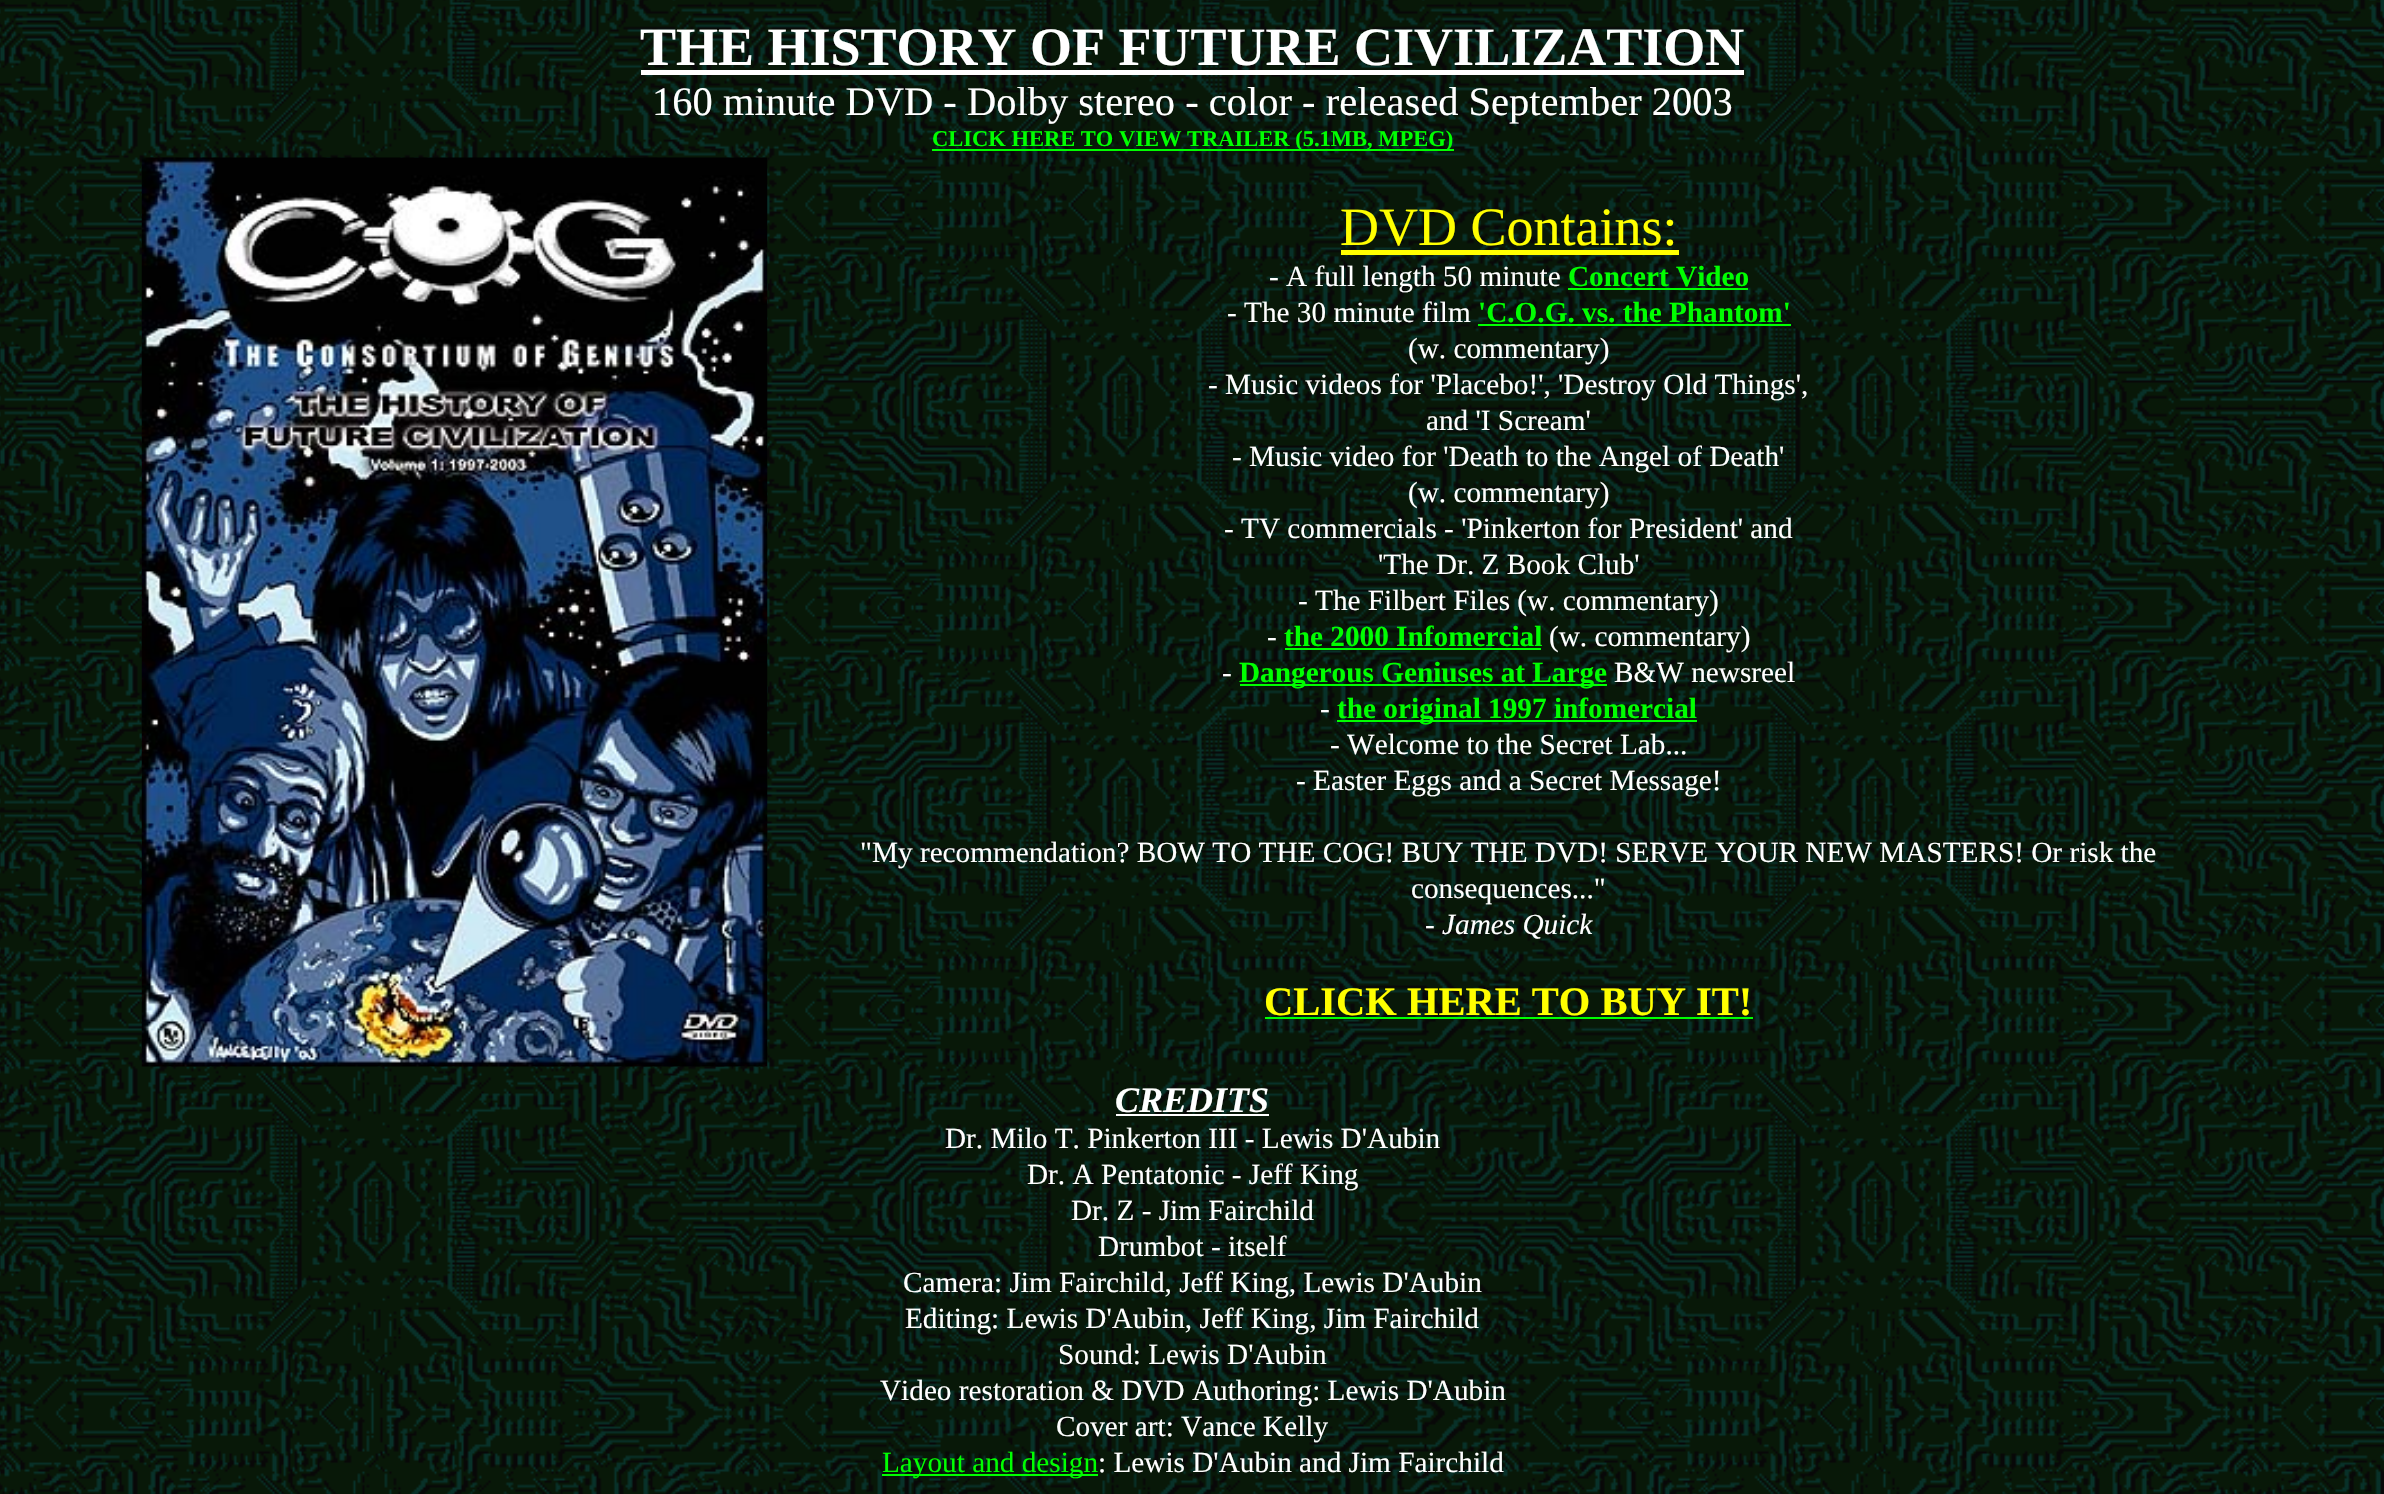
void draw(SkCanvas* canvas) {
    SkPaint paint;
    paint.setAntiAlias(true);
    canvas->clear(0xFFFFFFFF);
    canvas->drawImageRect(SkImages::DeferredFromEncodedData(SkData::MakeFromFileName("img1.png")), SkRect::MakeXYWH(0, 0, 2384, 1494), SkSamplingOptions());
    SkFont font1(fontMgr->matchFamilyStyle("Liberation Serif", SkFontStyle::Bold()), 54);
    font1.setSubpixel(true);
    paint.setColor(0xFFFFFFFF);
    canvas->drawString("THE HISTORY OF FUTURE CIVILIZATION", 640, 65, font1, paint);
    canvas->drawRect(SkRect::MakeXYWH(641, 70, 1103, 5), paint);
    SkFont font2(fontMgr->matchFamilyStyle("Liberation Serif", SkFontStyle::Normal()), 40.5f);
    font2.setSubpixel(true);
    canvas->drawString("160 minute DVD - Dolby stereo - color - released September 2003", 652, 115, font2, paint);
    paint.setColor(0xFF00FF00);
    canvas->drawRect(SkRect::MakeXYWH(932, 149, 522, 2), paint);
    SkFont font3(fontMgr->matchFamilyStyle("Liberation Serif", SkFontStyle::Bold()), 22.5f);
    font3.setSubpixel(true);
    canvas->drawString("CLICK HERE TO VIEW TRAILER (5.1MB, MPEG)", 932, 146, font3, paint);
    canvas->drawImageRect(SkImages::DeferredFromEncodedData(SkData::MakeFromFileName("img2.png")), SkRect::MakeXYWH(141, 157, 627, 910), SkSamplingOptions());
    SkFont font4(fontMgr->matchFamilyStyle("Liberation Serif", SkFontStyle::Normal()), 54);
    font4.setSubpixel(true);
    paint.setColor(0xFFFFFF00);
    canvas->drawString("DVD Contains:", 1340, 245, font4, paint);
    canvas->drawRect(SkRect::MakeXYWH(1341, 250, 338, 5), paint);
    SkFont font5(fontMgr->matchFamilyStyle("Liberation Serif", SkFontStyle::Normal()), 29.25f);
    font5.setSubpixel(true);
    paint.setColor(0xFFFFFFFF);
    canvas->drawString("- A full length 50 minute", 1269, 286, font5, paint);
    SkFont font6(fontMgr->matchFamilyStyle("Liberation Serif", SkFontStyle::Bold()), 29.25f);
    font6.setSubpixel(true);
    paint.setColor(0xFF00FF00);
    canvas->drawString("Concert Video", 1568, 286, font6, paint);
    canvas->drawRect(SkRect::MakeXYWH(1568, 288, 180, 2), paint);
    paint.setColor(0xFFFFFFFF);
    canvas->drawString("- The 30 minute film", 1227, 322, font5, paint);
    paint.setColor(0xFF00FF00);
    canvas->drawString("'C.O.G. vs. the Phantom'", 1478, 322, font6, paint);
    canvas->drawRect(SkRect::MakeXYWH(1478, 324, 313, 2), paint);
    paint.setColor(0xFFFFFFFF);
    canvas->drawString("(w. commentary)", 1408, 358, font5, paint);
    canvas->drawString("- Music videos for 'Placebo!', 'Destroy Old Things',", 1208, 394, font5, paint);
    canvas->drawString("and 'I Scream'", 1426, 430, font5, paint);
    canvas->drawString("- Music video for 'Death to the Angel of Death'", 1232, 466, font5, paint);
    canvas->drawString("(w. commentary)", 1408, 502, font5, paint);
    canvas->drawString("- TV commercials - 'Pinkerton for President' and", 1224, 538, font5, paint);
    canvas->drawString("'The Dr. Z Book Club'", 1378, 574, font5, paint);
    canvas->drawString("- The Filbert Files (w. commentary)", 1298, 610, font5, paint);
    canvas->drawString("-", 1267, 646, font5, paint);
    paint.setColor(0xFF00FF00);
    canvas->drawString("the 2000 Infomercial", 1284, 646, font6, paint);
    canvas->drawRect(SkRect::MakeXYWH(1285, 648, 256, 2), paint);
    paint.setColor(0xFFFFFFFF);
    canvas->drawString("(w. commentary)", 1549, 646, font5, paint);
    canvas->drawString("-", 1222, 682, font5, paint);
    paint.setColor(0xFF00FF00);
    canvas->drawRect(SkRect::MakeXYWH(1240, 684, 367, 2), paint);
    canvas->drawString("Dangerous Geniuses at Large", 1239, 682, font6, paint);
    paint.setColor(0xFFFFFFFF);
    canvas->drawString("B&W newsreel", 1614, 682, font5, paint);
    canvas->drawString("-", 1320, 718, font5, paint);
    paint.setColor(0xFF00FF00);
    canvas->drawRect(SkRect::MakeXYWH(1337, 720, 360, 2), paint);
    canvas->drawString("the original 1997 infomercial", 1337, 718, font6, paint);
    paint.setColor(0xFFFFFFFF);
    canvas->drawString("- Welcome to the Secret Lab...", 1330, 754, font5, paint);
    canvas->drawString("- Easter Eggs and a Secret Message!", 1296, 790, font5, paint);
    canvas->drawString("\"My recommendation? BOW TO THE COG! BUY THE DVD! SERVE YOUR NEW MASTERS! Or risk the", 860, 862, font5, paint);
    canvas->drawString("consequences...\"", 1411, 898, font5, paint);
    SkFont font7(fontMgr->matchFamilyStyle("Liberation Serif", SkFontStyle::Italic()), 29.25f);
    font7.setSubpixel(true);
    canvas->drawString("- James Quick", 1425, 934, font7, paint);
    SkFont font8(fontMgr->matchFamilyStyle("Liberation Serif", SkFontStyle::Bold()), 40.5f);
    font8.setSubpixel(true);
    paint.setColor(0xFFFFFF00);
    canvas->drawString("CLICK HERE TO BUY IT!", 1264, 1015, font8, paint);
    paint.setColor(0xFF00FF00);
    canvas->drawRect(SkRect::MakeXYWH(1265, 1017, 488, 2), paint);
    SkFont font9(fontMgr->matchFamilyStyle("Liberation Serif", SkFontStyle::BoldItalic()), 36);
    font9.setSubpixel(true);
    paint.setColor(0xFFFFFFFF);
    canvas->drawString("CREDITS", 1115, 1112, font9, paint);
    canvas->drawRect(SkRect::MakeXYWH(1116, 1114, 153, 2), paint);
    canvas->drawString("Dr. Milo T. Pinkerton III - Lewis D'Aubin", 945, 1148, font5, paint);
    canvas->drawString("Dr. A Pentatonic - Jeff King", 1027, 1184, font5, paint);
    canvas->drawString("Dr. Z - Jim Fairchild", 1071, 1220, font5, paint);
    canvas->drawString("Drumbot - itself", 1098, 1256, font5, paint);
    canvas->drawString("Camera: Jim Fairchild, Jeff King, Lewis D'Aubin", 903, 1292, font5, paint);
    canvas->drawString("Editing: Lewis D'Aubin, Jeff King, Jim Fairchild", 905, 1328, font5, paint);
    canvas->drawString("Sound: Lewis D'Aubin", 1058, 1364, font5, paint);
    canvas->drawString("Video restoration & DVD Authoring: Lewis D'Aubin", 880, 1400, font5, paint);
    canvas->drawString("Cover art: Vance Kelly", 1056, 1436, font5, paint);
    paint.setColor(0xFF00FF00);
    canvas->drawRect(SkRect::MakeXYWH(882, 1474, 216, 2), paint);
    canvas->drawString("Layout and design", 882, 1472, font5, paint);
    paint.setColor(0xFFFFFFFF);
    canvas->drawString(": Lewis D'Aubin and Jim Fairchild", 1098, 1472, font5, paint);
}
